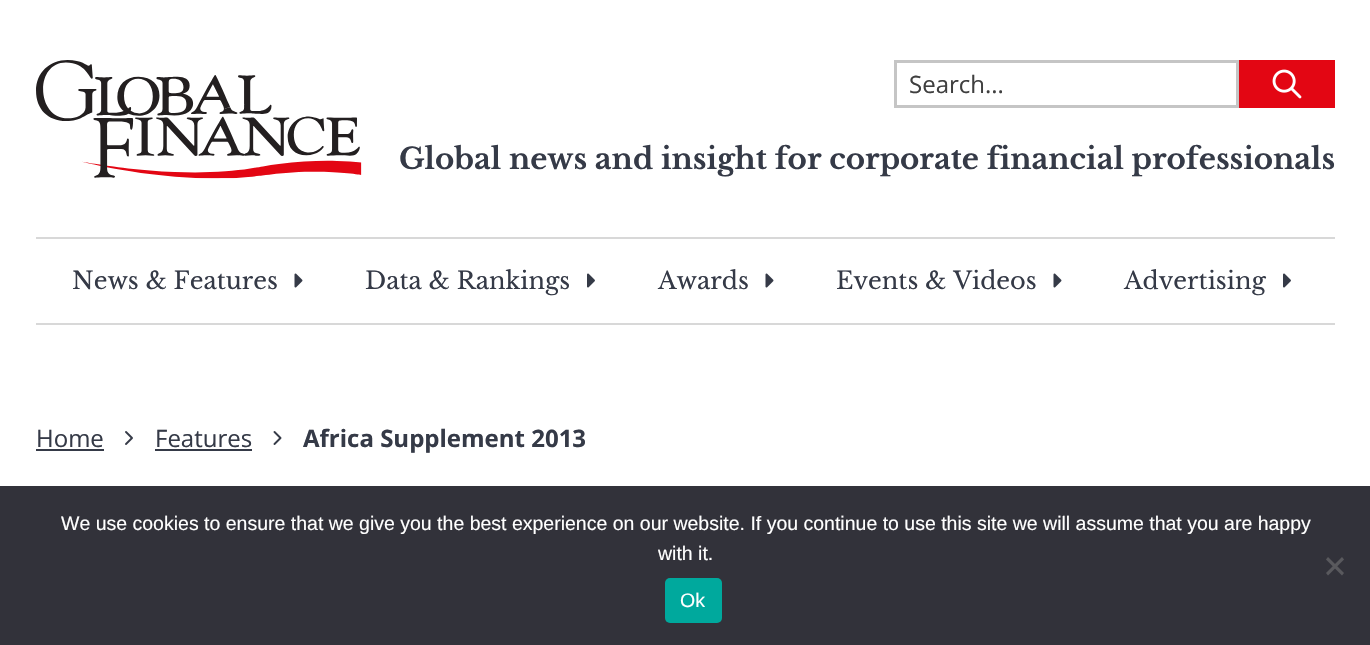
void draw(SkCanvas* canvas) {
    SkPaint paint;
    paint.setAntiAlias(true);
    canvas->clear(0xFFFFFFFF);
    canvas->drawImageRect(SkImages::DeferredFromEncodedData(SkData::MakeFromFileName("img1.png")), SkRect::MakeXYWH(36, 60, 326, 119), SkSamplingOptions());
    paint.setStyle(SkPaint::kStroke_Style);
    paint.setStrokeWidth(3);
    paint.setColor(0xFFC5C5C5);
    canvas->drawRect(SkRect::MakeXYWH(895.5f, 61.5f, 342, 45), paint);
    SkFont font1(fontMgr->matchFamilyStyle("Open Sans", SkFontStyle::Normal()), 24);
    font1.setSubpixel(true);
    paint.setStyle(SkPaint::kFill_Style);
    paint.setColor(0xFF3F3F3F);
    canvas->drawString("Search...", 909, 93, font1, paint);
    paint.setColor(0xFFE30613);
    canvas->drawRect(SkRect::MakeXYWH(1239, 60, 96, 48), paint);
    canvas->drawImageRect(SkImages::DeferredFromEncodedData(SkData::MakeFromFileName("img2.png")), SkRect::MakeXYWH(1272, 69, 30, 30), SkSamplingOptions());
    SkFont font2(fontMgr->matchFamilyStyle("Libre Baskerville", SkFontStyle::Bold()), 29.25f);
    font2.setSubpixel(true);
    paint.setColor(0xFF353A47);
    canvas->drawString("Global news and insight for corporate financial professionals", 399, 169, font2, paint);
    paint.setColor(0xFFD8D8D8);
    canvas->drawRect(SkRect::MakeXYWH(36, 237, 1299, 2), paint);
    canvas->drawRect(SkRect::MakeXYWH(36, 323, 1299, 2), paint);
    SkFont font3(fontMgr->matchFamilyStyle("Libre Baskerville", SkFontStyle::Normal()), 24);
    font3.setSubpixel(true);
    paint.setColor(0xFF353A47);
    canvas->drawString("News & Features", 72, 289, font3, paint);
    canvas->drawImageRect(SkImages::DeferredFromEncodedData(SkData::MakeFromFileName("img3.png")), SkRect::MakeXYWH(294, 273, 9, 15), SkSamplingOptions());
    canvas->drawString("Data & Rankings", 365, 289, font3, paint);
    canvas->drawImageRect(SkImages::DeferredFromEncodedData(SkData::MakeFromFileName("img4.png")), SkRect::MakeXYWH(587, 273, 8, 15), SkSamplingOptions());
    canvas->drawString("Awards", 658, 289, font3, paint);
    canvas->drawImageRect(SkImages::DeferredFromEncodedData(SkData::MakeFromFileName("img3.png")), SkRect::MakeXYWH(765, 273, 9, 15), SkSamplingOptions());
    canvas->drawString("Events & Videos", 836, 289, font3, paint);
    canvas->drawImageRect(SkImages::DeferredFromEncodedData(SkData::MakeFromFileName("img3.png")), SkRect::MakeXYWH(1053, 273, 9, 15), SkSamplingOptions());
    canvas->drawString("Advertising", 1124, 289, font3, paint);
    canvas->drawImageRect(SkImages::DeferredFromEncodedData(SkData::MakeFromFileName("img4.png")), SkRect::MakeXYWH(1283, 273, 8, 15), SkSamplingOptions());
    canvas->drawString("Home", 36, 447, font1, paint);
    canvas->drawRect(SkRect::MakeXYWH(36, 449, 68, 2), paint);
    canvas->drawImageRect(SkImages::DeferredFromEncodedData(SkData::MakeFromFileName("img5.png")), SkRect::MakeXYWH(125, 431, 8, 14), SkSamplingOptions());
    canvas->drawString("Features", 155, 447, font1, paint);
    canvas->drawRect(SkRect::MakeXYWH(155, 449, 97, 2), paint);
    canvas->drawImageRect(SkImages::DeferredFromEncodedData(SkData::MakeFromFileName("img6.png")), SkRect::MakeXYWH(273, 431, 9, 14), SkSamplingOptions());
    SkFont font4(fontMgr->matchFamilyStyle("Open Sans", SkFontStyle::Bold()), 24);
    font4.setSubpixel(true);
    canvas->drawString("Africa Supplement 2013", 303, 447, font4, paint);
    paint.setColor(0xFF32323A);
    canvas->drawRect(SkRect::MakeXYWH(0, 486, 1370, 159), paint);
    SkFont font5(fontMgr->matchFamilyStyle("Liberation Sans", SkFontStyle::Normal()), 19.5f);
    font5.setSubpixel(true);
    paint.setColor(0xFFFFFFFF);
    canvas->drawString("We use cookies to ensure that we give you the best experience on our website. If you continue to use this site we will assume that you are happy", 61, 530, font5, paint);
    canvas->drawString("with it.", 658, 560, font5, paint);
    paint.setColor(0xFF59595D);
    canvas->drawPath(SkPathBuilder().moveTo(1342, 557).lineTo(1344, 559.5f).lineTo(1328, 575.5f).lineTo(1326, 573).close().detach(), paint);
    canvas->drawPath(SkPathBuilder().moveTo(1326, 559.5f).lineTo(1328, 557).lineTo(1344, 573).lineTo(1342, 575.5f).close().detach(), paint);
    paint.setColor(0xFF00A99D);
    canvas->drawRoundRect(SkRect::MakeXYWH(665, 578, 57, 45), 5, 5, paint);
    paint.setColor(0xFFFFFFFF);
    canvas->drawString("Ok", 680, 607, font5, paint);
}
